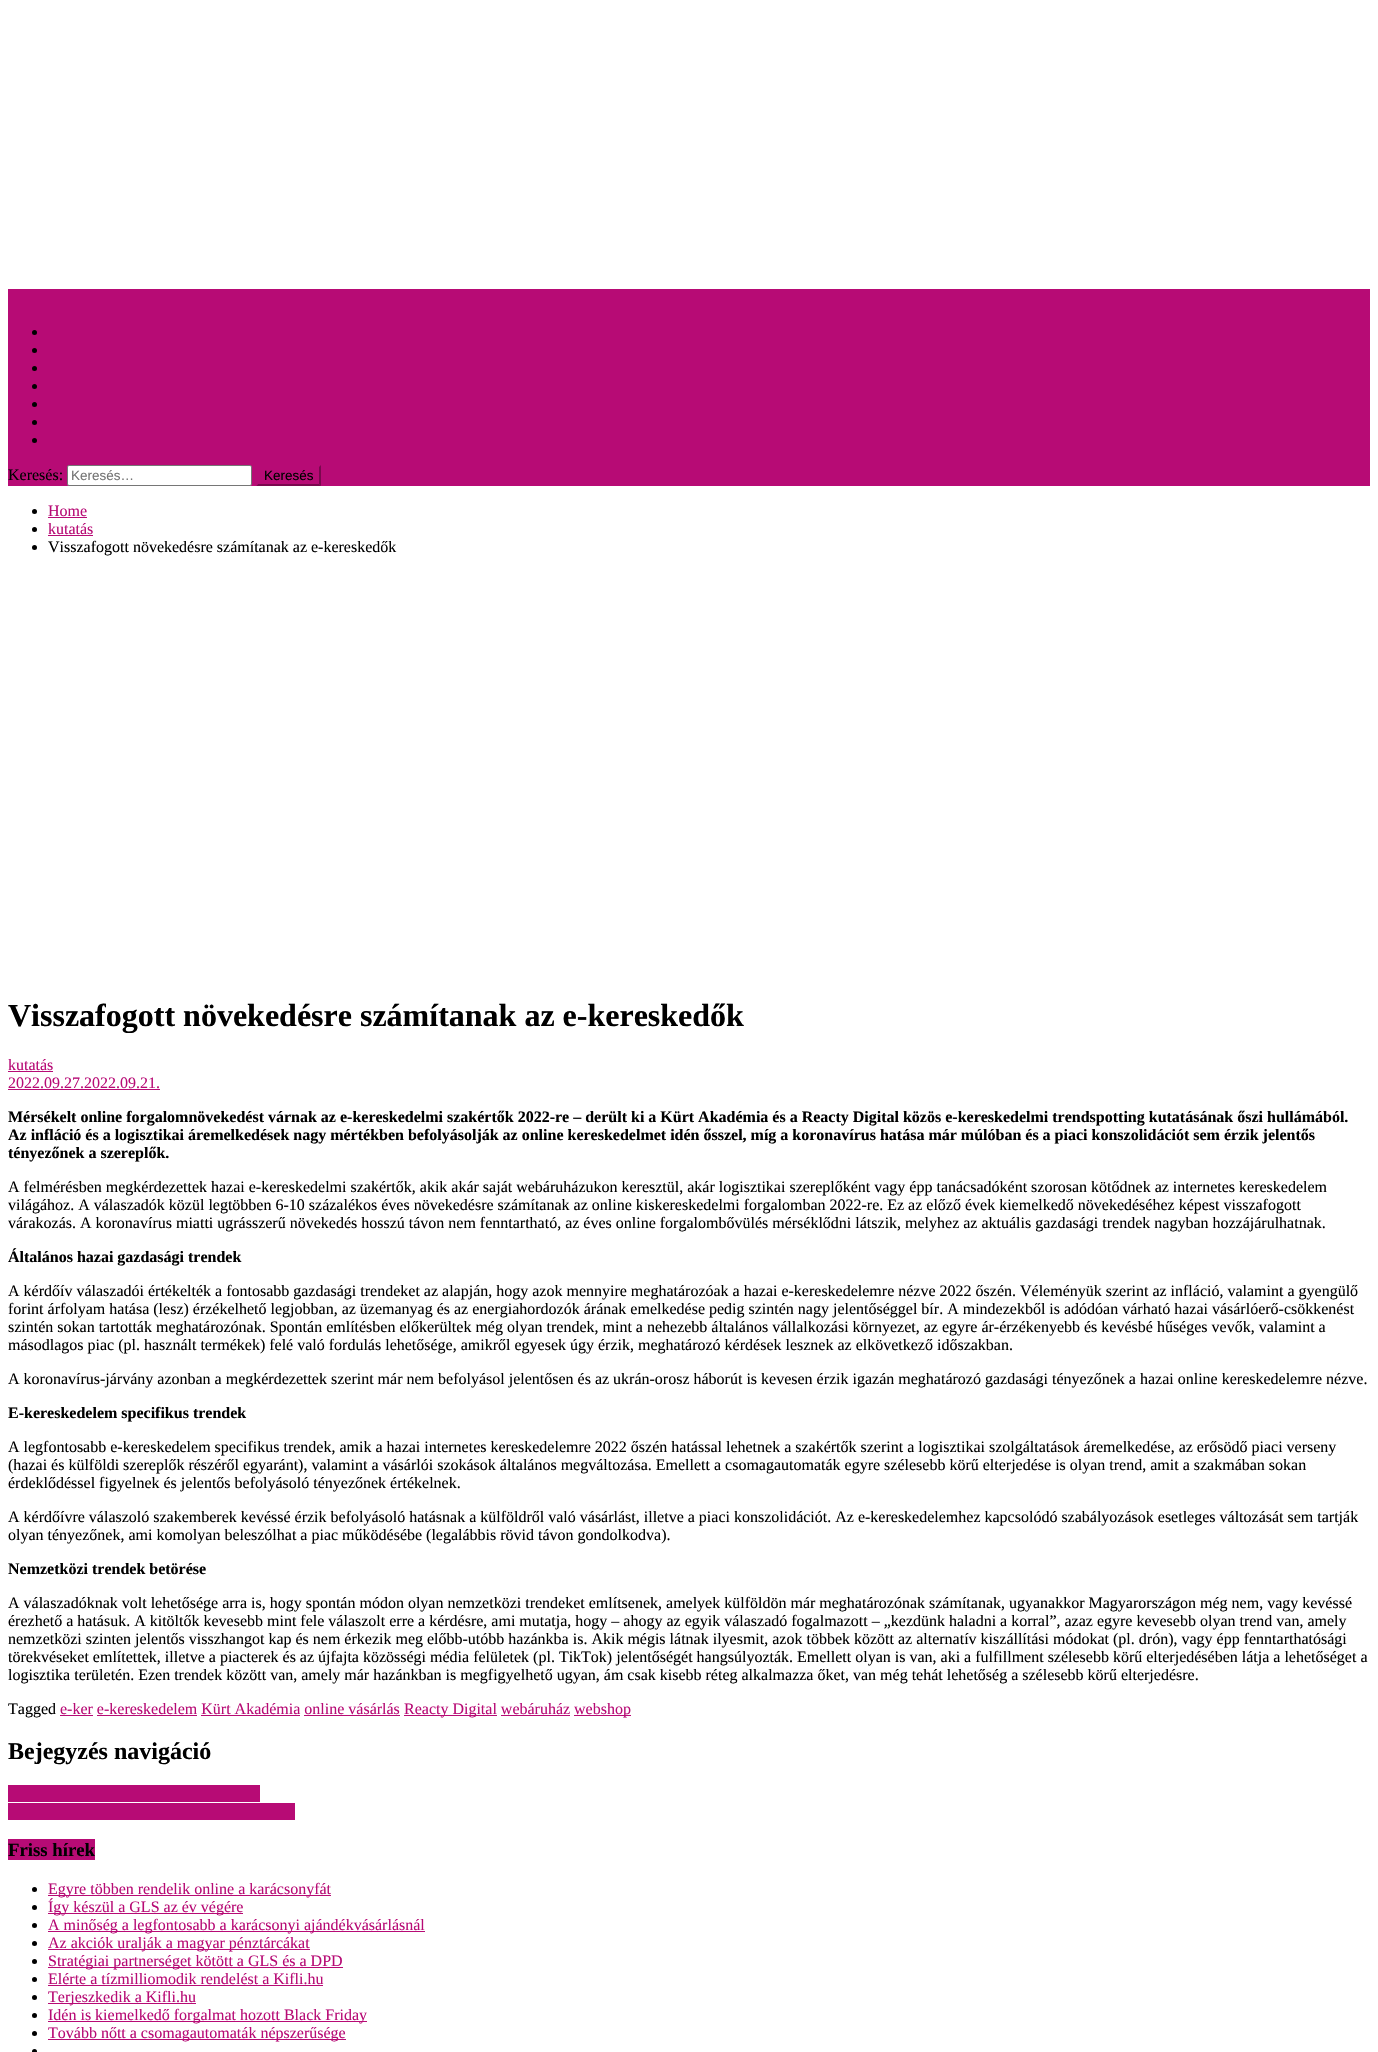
void draw(SkCanvas* canvas) {
    SkPaint paint;
    paint.setAntiAlias(true);
    canvas->clear(0xFFFFFFFF);
    paint.setColor(0xFFB70B75);
    canvas->drawRect(SkRect::MakeXYWH(8, 289, 1362, 197), paint);
    paint.setColor(0xFF000000);
    canvas->drawCircle(34.5f, 332.5f, 2.5f, paint);
    canvas->drawCircle(34.5f, 350.5f, 2.5f, paint);
    canvas->drawCircle(34.5f, 368.5f, 2.5f, paint);
    canvas->drawCircle(34.5f, 386.5f, 2.5f, paint);
    canvas->drawCircle(34.5f, 404.5f, 2.5f, paint);
    canvas->drawCircle(34.5f, 422.5f, 2.5f, paint);
    canvas->drawCircle(34.5f, 440.5f, 2.5f, paint);
    SkFont font1(fontMgr->matchFamilyStyle("Liberation Serif", SkFontStyle::Normal()), 16);
    font1.setSubpixel(true);
    canvas->drawString("Keresés:", 8, 480, font1, paint);
    paint.setColor(0xFFFFFFFF);
    canvas->drawRoundRect(SkRect::MakeXYWH(67.5f, 465.5f, 184, 20), 1.5f, 1.5f, paint);
    paint.setStyle(SkPaint::kStroke_Style);
    paint.setStrokeWidth(1);
    paint.setColor(0xFF767676);
    canvas->drawRoundRect(SkRect::MakeXYWH(67.5f, 465.5f, 184, 20), 1.5f, 1.5f, paint);
    SkFont font2(fontMgr->matchFamilyStyle("Liberation Sans", SkFontStyle::Normal()), 13.5f);
    font2.setSubpixel(true);
    paint.setStyle(SkPaint::kFill_Style);
    paint.setColor(0xFF757575);
    canvas->drawString("Keresés…", 71, 480, font2, paint);
    paint.setColor(0xFF7A074E);
    canvas->drawPath(SkPathBuilder().moveTo(321, 465).lineTo(321, 486).lineTo(319, 484).lineTo(319, 467).close().detach(), paint);
    canvas->drawPath(SkPathBuilder().moveTo(321, 486).lineTo(256, 486).lineTo(258, 484).lineTo(319, 484).close().detach(), paint);
    paint.setColor(0xFFB70B75);
    canvas->drawPath(SkPathBuilder().moveTo(256, 486).lineTo(256, 465).lineTo(258, 467).lineTo(258, 484).close().detach(), paint);
    paint.setColor(0xFF000000);
    canvas->drawString("Keresés", 264, 480, font2, paint);
    canvas->drawCircle(34.5f, 511.5f, 2.5f, paint);
    paint.setColor(0xFFB70B75);
    canvas->drawString("Home", 48, 516, font1, paint);
    canvas->drawRect(SkRect::MakeXYWH(48, 517, 39, 1), paint);
    paint.setColor(0xFF000000);
    canvas->drawCircle(34.5f, 529.5f, 2.5f, paint);
    paint.setColor(0xFFB70B75);
    canvas->drawString("kutatás", 48, 534, font1, paint);
    canvas->drawRect(SkRect::MakeXYWH(48, 535, 45, 1), paint);
    paint.setColor(0xFF000000);
    canvas->drawCircle(34.5f, 547.5f, 2.5f, paint);
    canvas->drawString("Visszafogott növekedésre számítanak az e-kereskedők", 48, 552, font1, paint);
    SkFont font3(fontMgr->matchFamilyStyle("Liberation Serif", SkFontStyle::Bold()), 32);
    font3.setSubpixel(true);
    canvas->drawString("Visszafogott növekedésre számítanak az e-kereskedők", 8, 1026, font3, paint);
    paint.setColor(0xFFB70B75);
    canvas->drawString("kutatás", 8, 1070, font1, paint);
    canvas->drawRect(SkRect::MakeXYWH(8, 1071, 45, 1), paint);
    canvas->drawString("2022.09.27.2022.09.21.", 8, 1088, font1, paint);
    canvas->drawRect(SkRect::MakeXYWH(8, 1089, 152, 1), paint);
    SkFont font4(fontMgr->matchFamilyStyle("Liberation Serif", SkFontStyle::Bold()), 16);
    font4.setSubpixel(true);
    paint.setColor(0xFF000000);
    canvas->drawString("Mérsékelt online forgalomnövekedést várnak az e-kereskedelmi szakértők 2022-re – derült ki a Kürt Akadémia és a Reacty Digital közös e-kereskedelmi trendspotting kutatásának őszi hullámából.", 8, 1122, font4, paint);
    canvas->drawString("Az infláció és a logisztikai áremelkedések nagy mértékben befolyásolják az online kereskedelmet idén ősszel, míg a koronavírus hatása már múlóban és a piaci konszolidációt sem érzik jelentős", 8, 1140, font4, paint);
    canvas->drawString("tényezőnek a szereplők.", 8, 1158, font4, paint);
    canvas->drawString("A felmérésben megkérdezettek hazai e-kereskedelmi szakértők, akik akár saját webáruházukon keresztül, akár logisztikai szereplőként vagy épp tanácsadóként szorosan kötődnek az internetes kereskedelem", 8, 1192, font1, paint);
    canvas->drawString("világához. A válaszadók közül legtöbben 6-10 százalékos éves növekedésre számítanak az online kiskereskedelmi forgalomban 2022-re. Ez az előző évek kiemelkedő növekedéséhez képest visszafogott", 8, 1210, font1, paint);
    canvas->drawString("várakozás. A koronavírus miatti ugrásszerű növekedés hosszú távon nem fenntartható, az éves online forgalombővülés mérséklődni látszik, melyhez az aktuális gazdasági trendek nagyban hozzájárulhatnak.", 8, 1228, font1, paint);
    canvas->drawString("Általános hazai gazdasági trendek", 8, 1262, font4, paint);
    canvas->drawString("A kérdőív válaszadói értékelték a fontosabb gazdasági trendeket az alapján, hogy azok mennyire meghatározóak a hazai e-kereskedelemre nézve 2022 őszén. Véleményük szerint az infláció, valamint a gyengülő", 8, 1296, font1, paint);
    canvas->drawString("forint árfolyam hatása (lesz) érzékelhető legjobban, az üzemanyag és az energiahordozók árának emelkedése pedig szintén nagy jelentőséggel bír. A mindezekből is adódóan várható hazai vásárlóerő-csökkenést", 8, 1314, font1, paint);
    canvas->drawString("szintén sokan tartották meghatározónak. Spontán említésben előkerültek még olyan trendek, mint a nehezebb általános vállalkozási környezet, az egyre ár-érzékenyebb és kevésbé hűséges vevők, valamint a", 8, 1332, font1, paint);
    canvas->drawString("másodlagos piac (pl. használt termékek) felé való fordulás lehetősége, amikről egyesek úgy érzik, meghatározó kérdések lesznek az elkövetkező időszakban.", 8, 1350, font1, paint);
    canvas->drawString("A koronavírus-járvány azonban a megkérdezettek szerint már nem befolyásol jelentősen és az ukrán-orosz háborút is kevesen érzik igazán meghatározó gazdasági tényezőnek a hazai online kereskedelemre nézve.", 8, 1384, font1, paint);
    canvas->drawString("E-kereskedelem specifikus trendek", 8, 1418, font4, paint);
    canvas->drawString("A legfontosabb e-kereskedelem specifikus trendek, amik a hazai internetes kereskedelemre 2022 őszén hatással lehetnek a szakértők szerint a logisztikai szolgáltatások áremelkedése, az erősödő piaci verseny", 8, 1452, font1, paint);
    canvas->drawString("(hazai és külföldi szereplők részéről egyaránt), valamint a vásárlói szokások általános megváltozása. Emellett a csomagautomaták egyre szélesebb körű elterjedése is olyan trend, amit a szakmában sokan", 8, 1470, font1, paint);
    canvas->drawString("érdeklődéssel figyelnek és jelentős befolyásoló tényezőnek értékelnek.", 8, 1488, font1, paint);
    canvas->drawString("A kérdőívre válaszoló szakemberek kevéssé érzik befolyásoló hatásnak a külföldről való vásárlást, illetve a piaci konszolidációt. Az e-kereskedelemhez kapcsolódó szabályozások esetleges változását sem tartják", 8, 1522, font1, paint);
    canvas->drawString("olyan tényezőnek, ami komolyan beleszólhat a piac működésébe (legalábbis rövid távon gondolkodva).", 8, 1540, font1, paint);
    canvas->drawString("Nemzetközi trendek betörése", 8, 1574, font4, paint);
    canvas->drawString("A válaszadóknak volt lehetősége arra is, hogy spontán módon olyan nemzetközi trendeket említsenek, amelyek külföldön már meghatározónak számítanak, ugyanakkor Magyarországon még nem, vagy kevéssé", 8, 1608, font1, paint);
    canvas->drawString("érezhető a hatásuk. A kitöltők kevesebb mint fele válaszolt erre a kérdésre, ami mutatja, hogy – ahogy az egyik válaszadó fogalmazott – „kezdünk haladni a korral”, azaz egyre kevesebb olyan trend van, amely", 8, 1626, font1, paint);
    canvas->drawString("nemzetközi szinten jelentős visszhangot kap és nem érkezik meg előbb-utóbb hazánkba is. Akik mégis látnak ilyesmit, azok többek között az alternatív kiszállítási módokat (pl. drón), vagy épp fenntarthatósági", 8, 1644, font1, paint);
    canvas->drawString("törekvéseket említettek, illetve a piacterek és az újfajta közösségi média felületek (pl. TikTok) jelentőségét hangsúlyozták. Emellett olyan is van, aki a fulfillment szélesebb körű elterjedésében látja a lehetőséget a", 8, 1662, font1, paint);
    canvas->drawString("logisztika területén. Ezen trendek között van, amely már hazánkban is megfigyelhető ugyan, ám csak kisebb réteg alkalmazza őket, van még tehát lehetőség a szélesebb körű elterjedésre.", 8, 1680, font1, paint);
    canvas->drawString("Tagged", 8, 1714, font1, paint);
    paint.setColor(0xFFB70B75);
    canvas->drawString("e-ker e-kereskedelem Kürt Akadémia online vásárlás", 60, 1714, font1, paint);
    canvas->drawRect(SkRect::MakeXYWH(60, 1715, 33, 1), paint);
    canvas->drawRect(SkRect::MakeXYWH(97, 1715, 100, 1), paint);
    canvas->drawRect(SkRect::MakeXYWH(201, 1715, 99, 1), paint);
    canvas->drawRect(SkRect::MakeXYWH(304, 1715, 96, 1), paint);
    canvas->drawRect(SkRect::MakeXYWH(404, 1715, 93, 1), paint);
    canvas->drawString("Reacty Digital webáruház", 404, 1714, font1, paint);
    canvas->drawRect(SkRect::MakeXYWH(501, 1715, 69, 1), paint);
    canvas->drawRect(SkRect::MakeXYWH(574, 1715, 57, 1), paint);
    canvas->drawString("webshop", 574, 1714, font1, paint);
    SkFont font5(fontMgr->matchFamilyStyle("Liberation Serif", SkFontStyle::Bold()), 24);
    font5.setSubpixel(true);
    paint.setColor(0xFF000000);
    canvas->drawString("Bejegyzés navigáció", 8, 1759, font5, paint);
    paint.setColor(0xFFB70B75);
    canvas->drawRect(SkRect::MakeXYWH(8, 1785, 252, 17), paint);
    canvas->drawRect(SkRect::MakeXYWH(8, 1803, 287, 17), paint);
    canvas->drawRect(SkRect::MakeXYWH(8, 1839, 87, 21), paint);
    SkFont font6(fontMgr->matchFamilyStyle("Liberation Serif", SkFontStyle::Bold()), 18.75f);
    font6.setSubpixel(true);
    paint.setColor(0xFF000000);
    canvas->drawString("Friss hírek", 8, 1856, font6, paint);
    canvas->drawCircle(34.5f, 1889.5f, 2.5f, paint);
    paint.setColor(0xFFB70B75);
    canvas->drawRect(SkRect::MakeXYWH(48, 1895, 283, 1), paint);
    canvas->drawString("Egyre többen rendelik online a karácsonyfát", 48, 1894, font1, paint);
    paint.setColor(0xFF000000);
    canvas->drawCircle(34.5f, 1907.5f, 2.5f, paint);
    paint.setColor(0xFFB70B75);
    canvas->drawRect(SkRect::MakeXYWH(48, 1913, 195, 1), paint);
    canvas->drawString("Így készül a GLS az év végére", 48, 1912, font1, paint);
    paint.setColor(0xFF000000);
    canvas->drawCircle(34.5f, 1925.5f, 2.5f, paint);
    paint.setColor(0xFFB70B75);
    canvas->drawRect(SkRect::MakeXYWH(48, 1931, 377, 1), paint);
    canvas->drawString("A minőség a legfontosabb a karácsonyi ajándékvásárlásnál", 48, 1930, font1, paint);
    paint.setColor(0xFF000000);
    canvas->drawCircle(34.5f, 1943.5f, 2.5f, paint);
    paint.setColor(0xFFB70B75);
    canvas->drawRect(SkRect::MakeXYWH(48, 1949, 262, 1), paint);
    canvas->drawString("Az akciók uralják a magyar pénztárcákat", 48, 1948, font1, paint);
    paint.setColor(0xFF000000);
    canvas->drawCircle(34.5f, 1961.5f, 2.5f, paint);
    paint.setColor(0xFFB70B75);
    canvas->drawRect(SkRect::MakeXYWH(48, 1967, 295, 1), paint);
    canvas->drawString("Stratégiai partnerséget kötött a GLS és a DPD", 48, 1966, font1, paint);
    paint.setColor(0xFF000000);
    canvas->drawCircle(34.5f, 1979.5f, 2.5f, paint);
    paint.setColor(0xFFB70B75);
    canvas->drawString("Elérte a tízmilliomodik rendelést a Kifli.hu", 48, 1984, font1, paint);
    canvas->drawRect(SkRect::MakeXYWH(48, 1985, 275, 1), paint);
    paint.setColor(0xFF000000);
    canvas->drawCircle(34.5f, 1997.5f, 2.5f, paint);
    paint.setColor(0xFFB70B75);
    canvas->drawRect(SkRect::MakeXYWH(48, 2003, 148, 1), paint);
    canvas->drawString("Terjeszkedik a Kifli.hu", 48, 2002, font1, paint);
    paint.setColor(0xFF000000);
    canvas->drawCircle(34.5f, 2015.5f, 2.5f, paint);
    paint.setColor(0xFFB70B75);
    canvas->drawRect(SkRect::MakeXYWH(48, 2021, 319, 1), paint);
    canvas->drawString("Idén is kiemelkedő forgalmat hozott Black Friday", 48, 2020, font1, paint);
    paint.setColor(0xFF000000);
    canvas->drawCircle(34.5f, 2033.5f, 2.5f, paint);
    paint.setColor(0xFFB70B75);
    canvas->drawRect(SkRect::MakeXYWH(48, 2039, 298, 1), paint);
    canvas->drawString("Tovább nőtt a csomagautomaták népszerűsége", 48, 2038, font1, paint);
    paint.setColor(0xFF000000);
    canvas->drawCircle(34.5f, 2051.5f, 2.5f, paint);
}
